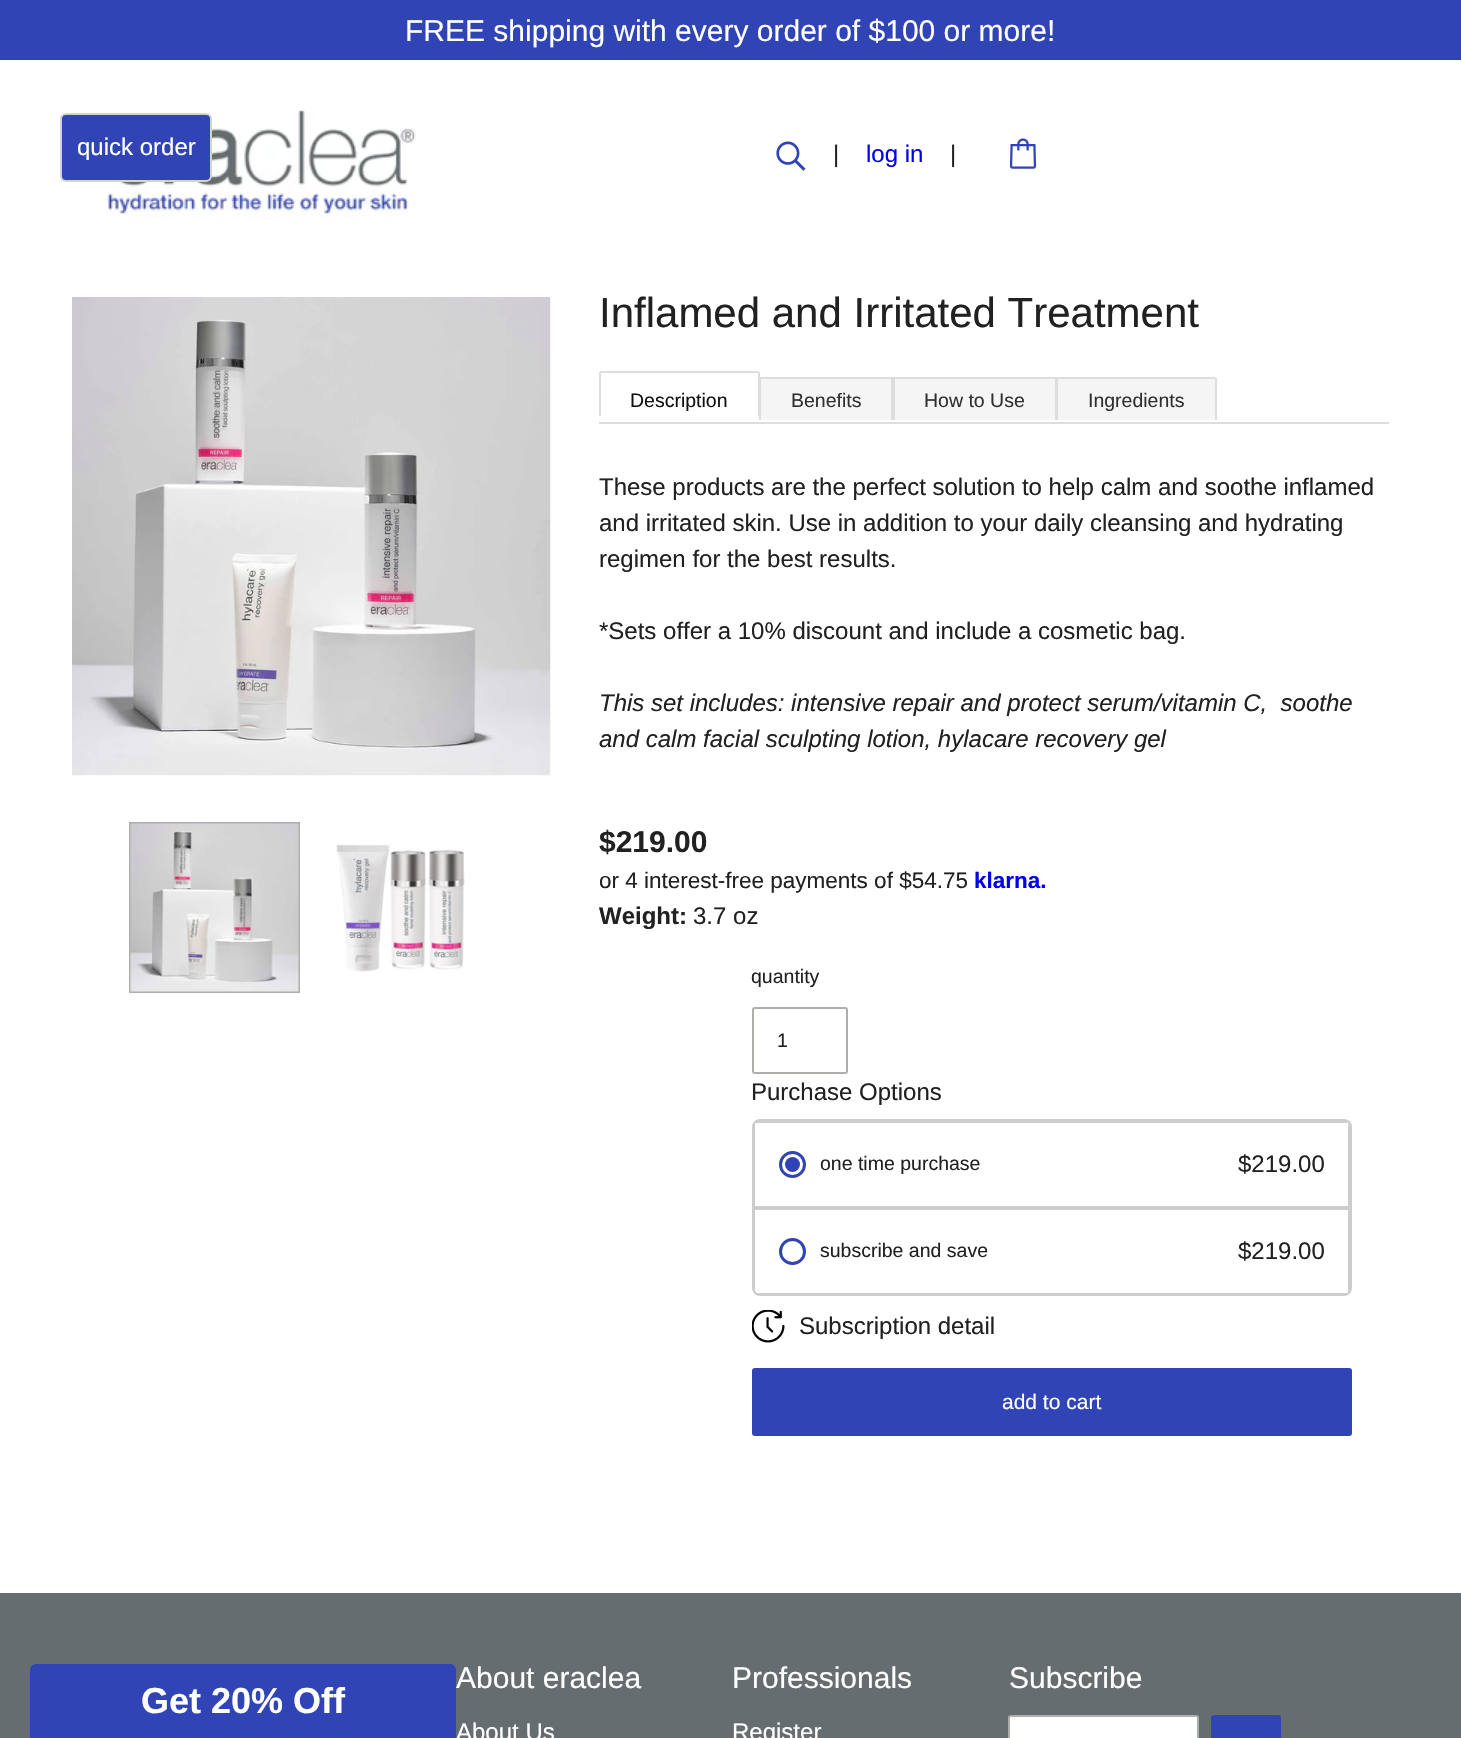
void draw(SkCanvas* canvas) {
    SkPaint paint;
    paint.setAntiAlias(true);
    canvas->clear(0xFFFFFFFF);
    paint.setColor(0xFF3044B5);
    canvas->drawRect(SkRect::MakeXYWH(0, 0, 1461, 60), paint);
    SkFont font1(fontMgr->matchFamilyStyle("Liberation Sans", SkFontStyle::Normal()), 30);
    font1.setSubpixel(true);
    paint.setColor(0xFFFFFFFF);
    canvas->drawString("FREE shipping with every order of $100 or more!", 405, 41, font1, paint);
    canvas->drawImageRect(SkImages::DeferredFromEncodedData(SkData::MakeFromFileName("img1.png")), SkRect::MakeXYWH(107, 109, 309, 110), SkSamplingOptions());
    paint.setColor(0xFF3044B5);
    canvas->drawRoundRect(SkRect::MakeXYWH(61, 114, 150, 67), 5, 5, paint);
    paint.setStyle(SkPaint::kStroke_Style);
    paint.setStrokeWidth(2);
    paint.setColor(0xFFD3D3D3);
    canvas->drawRoundRect(SkRect::MakeXYWH(61, 114, 150, 67), 5, 5, paint);
    SkFont font2(fontMgr->matchFamilyStyle("Liberation Sans", SkFontStyle::Normal()), 24);
    font2.setSubpixel(true);
    paint.setStyle(SkPaint::kFill_Style);
    paint.setColor(0xFFFFFFFF);
    canvas->drawString("quick order", 77, 155, font2, paint);
    canvas->drawImageRect(SkImages::DeferredFromEncodedData(SkData::MakeFromFileName("img2.png")), SkRect::MakeXYWH(776, 141, 30, 30), SkSamplingOptions());
    paint.setColor(0xFF212121);
    canvas->drawString("|", 833, 162, font2, paint);
    paint.setColor(0xFF0000EE);
    canvas->drawString("log in", 866, 162, font2, paint);
    paint.setColor(0xFF212121);
    canvas->drawString("|", 950, 162, font2, paint);
    canvas->drawImageRect(SkImages::DeferredFromEncodedData(SkData::MakeFromFileName("img3.png")), SkRect::MakeXYWH(1010, 138, 27, 31), SkSamplingOptions());
    canvas->drawImageRect(SkImages::DeferredFromEncodedData(SkData::MakeFromFileName("img4.png")), SkRect::MakeXYWH(72, 297, 479, 479), SkSamplingOptions());
    paint.setStyle(SkPaint::kStroke_Style);
    paint.setColor(0xFFADAFAA);
    canvas->drawRect(SkRect::MakeXYWH(130, 823, 169, 169), paint);
    canvas->drawImageRect(SkImages::DeferredFromEncodedData(SkData::MakeFromFileName("img5.png")), SkRect::MakeXYWH(130, 823, 169, 169), SkSamplingOptions());
    canvas->drawImageRect(SkImages::DeferredFromEncodedData(SkData::MakeFromFileName("img6.png")), SkRect::MakeXYWH(336, 844, 129, 128), SkSamplingOptions());
    SkFont font3(fontMgr->matchFamilyStyle("Liberation Sans", SkFontStyle::Normal()), 42);
    font3.setSubpixel(true);
    paint.setStyle(SkPaint::kFill_Style);
    paint.setColor(0xFF212121);
    canvas->drawString("Inflamed and Irritated Treatment", 599, 327, font3, paint);
    paint.setColor(0xFFDDDDDD);
    canvas->drawRect(SkRect::MakeXYWH(599, 422, 790, 2), paint);
    canvas->drawRect(SkRect::MakeXYWH(600, 371, 158, 2), paint);
    canvas->drawRect(SkRect::MakeXYWH(759, 377, 297, 2), paint);
    canvas->drawRect(SkRect::MakeXYWH(759, 377, 2, 43), paint);
    canvas->drawRect(SkRect::MakeXYWH(758, 372, 2, 44), paint);
    canvas->drawRect(SkRect::MakeXYWH(599, 372, 2, 44), paint);
    SkFont font4(fontMgr->matchFamilyStyle("Liberation Sans", SkFontStyle::Normal()), 19.5f);
    font4.setSubpixel(true);
    paint.setColor(0xFF111111);
    canvas->drawString("Description", 630, 407, font4, paint);
    paint.setColor(0xFFF5F5F5);
    canvas->drawRect(SkRect::MakeXYWH(761, 379, 130, 41), paint);
    paint.setColor(0xFFDDDDDD);
    canvas->drawRect(SkRect::MakeXYWH(891, 377, 4, 43), paint);
    paint.setColor(0xFF303030);
    canvas->drawString("Benefits", 791, 407, font4, paint);
    paint.setColor(0xFFF5F5F5);
    canvas->drawRect(SkRect::MakeXYWH(895, 379, 160, 41), paint);
    paint.setColor(0xFFDDDDDD);
    canvas->drawRect(SkRect::MakeXYWH(1055, 377, 1, 43), paint);
    paint.setColor(0xFF303030);
    canvas->drawString("How to Use", 924, 407, font4, paint);
    paint.setColor(0xFFF5F5F5);
    canvas->drawPath(SkPathBuilder().moveTo(1056, 377).lineTo(1214, 377).cubicTo(1215.5f, 377, 1217, 378.5f, 1217, 380).lineTo(1217, 420).lineTo(1056, 420).close().detach(), paint);
    paint.setColor(0xFFDDDDDD);
    canvas->drawRect(SkRect::MakeXYWH(1056, 377, 159, 2), paint);
    canvas->drawRect(SkRect::MakeXYWH(1215, 378, 2, 42), paint);
    canvas->drawRect(SkRect::MakeXYWH(1056, 377, 2, 43), paint);
    paint.setColor(0xFF303030);
    canvas->drawString("Ingredients", 1088, 407, font4, paint);
    paint.setColor(0xFF212121);
    canvas->drawString("These products are the perfect solution to help calm and soothe inflamed", 599, 495, font2, paint);
    canvas->drawString("and irritated skin. Use in addition to your daily cleansing and hydrating", 599, 531, font2, paint);
    canvas->drawString("regimen for the best results.", 599, 567, font2, paint);
    canvas->drawString("*Sets offer a 10% discount and include a cosmetic bag.", 599, 639, font2, paint);
    SkFont font5(fontMgr->matchFamilyStyle("Liberation Sans", SkFontStyle::Italic()), 24);
    font5.setSubpixel(true);
    canvas->drawString("This set includes: intensive repair and protect serum/vitamin C,  soothe", 599, 711, font5, paint);
    canvas->drawString("and calm facial sculpting lotion, hylacare recovery gel", 599, 747, font5, paint);
    SkFont font6(fontMgr->matchFamilyStyle("Liberation Sans", SkFontStyle::Bold()), 30);
    font6.setSubpixel(true);
    canvas->drawString("$219.00", 599, 852, font6, paint);
    SkFont font7(fontMgr->matchFamilyStyle("Liberation Sans", SkFontStyle::Normal()), 22.5f);
    font7.setSubpixel(true);
    canvas->drawString("or 4 interest-free payments of $54.75", 599, 888, font7, paint);
    SkFont font8(fontMgr->matchFamilyStyle("Liberation Sans", SkFontStyle::Bold()), 22.5f);
    font8.setSubpixel(true);
    paint.setColor(0xFF0000EE);
    canvas->drawString("klarna.", 974, 888, font8, paint);
    SkFont font9(fontMgr->matchFamilyStyle("Liberation Sans", SkFontStyle::Bold()), 24);
    font9.setSubpixel(true);
    paint.setColor(0xFF212121);
    canvas->drawString("Weight:", 599, 924, font9, paint);
    canvas->drawString("3.7 oz", 693, 924, font2, paint);
    canvas->drawString("quantity", 751, 983, font4, paint);
    paint.setStyle(SkPaint::kStroke_Style);
    paint.setColor(0xFFADAFAA);
    canvas->drawRoundRect(SkRect::MakeXYWH(753, 1008, 94, 65), 2, 2, paint);
    paint.setStyle(SkPaint::kFill_Style);
    paint.setColor(0xFF212121);
    canvas->drawString("1", 777, 1047, font4, paint);
    canvas->drawString("Purchase Options", 751, 1100, font2, paint);
    paint.setStyle(SkPaint::kStroke_Style);
    paint.setColor(0xFFCCCCCC);
    canvas->drawRoundRect(SkRect::MakeXYWH(753, 1120, 598, 175), 7, 7, paint);
    paint.setStyle(SkPaint::kFill_Style);
    canvas->drawPath(SkPathBuilder(SkPathFillType::kEvenOdd).moveTo(759, 1121).cubicTo(756, 1121, 753, 1124, 753, 1127).lineTo(753, 1208).lineTo(1350, 1208).lineTo(1350, 1127).cubicTo(1350, 1124, 1347, 1121, 1344, 1121).close().moveTo(755, 1123).lineTo(755, 1206).lineTo(1348, 1206).lineTo(1348, 1123).close().detach(), paint);
    paint.setStyle(SkPaint::kStroke_Style);
    paint.setStrokeWidth(3);
    paint.setColor(0xFF3044B5);
    canvas->drawCircle(792.5f, 1164.5f, 12, paint);
    paint.setStyle(SkPaint::kFill_Style);
    canvas->drawCircle(792.5f, 1164.5f, 7.5f, paint);
    paint.setColor(0xFF212121);
    canvas->drawString("one time purchase", 820, 1170, font4, paint);
    canvas->drawString("$219.00", 1238, 1172, font2, paint);
    paint.setColor(0xFFCCCCCC);
    canvas->drawPath(SkPathBuilder(SkPathFillType::kEvenOdd).moveTo(753, 1208).lineTo(753, 1289).cubicTo(753, 1292, 756, 1295, 759, 1295).lineTo(1344, 1295).cubicTo(1347, 1295, 1350, 1292, 1350, 1289).lineTo(1350, 1208).close().moveTo(755, 1210).lineTo(755, 1293).lineTo(1348, 1293).lineTo(1348, 1210).close().detach(), paint);
    paint.setStyle(SkPaint::kStroke_Style);
    paint.setColor(0xFF3044B5);
    canvas->drawCircle(792.5f, 1251.5f, 12, paint);
    paint.setStyle(SkPaint::kFill_Style);
    paint.setColor(0xFF212121);
    canvas->drawString("subscribe and save", 820, 1257, font4, paint);
    canvas->drawString("$219.00", 1238, 1259, font2, paint);
    canvas->drawImageRect(SkImages::DeferredFromEncodedData(SkData::MakeFromFileName("img7.png")), SkRect::MakeXYWH(752, 1310, 33, 33), SkSamplingOptions());
    canvas->drawString("Subscription detail", 799, 1334, font2, paint);
    paint.setColor(0xFF3044B5);
    canvas->drawRoundRect(SkRect::MakeXYWH(752, 1368, 600, 68), 3, 3, paint);
    SkFont font10(fontMgr->matchFamilyStyle("Liberation Sans", SkFontStyle::Normal()), 21);
    font10.setSubpixel(true);
    paint.setColor(0xFFFFFFFF);
    canvas->drawString("add to cart", 1002, 1409, font10, paint);
    paint.setColor(0xFF666D70);
    canvas->drawRect(SkRect::MakeXYWH(0, 1593, 1461, 145), paint);
    paint.setColor(0xFFFFFFFF);
    canvas->drawString("About eraclea", 456, 1688, font1, paint);
    canvas->drawString("About Us", 456, 1740, font2, paint);
    canvas->drawString("Professionals", 732, 1688, font1, paint);
    canvas->drawString("Register", 732, 1740, font2, paint);
    canvas->drawString("Subscribe", 1009, 1688, font1, paint);
    canvas->drawRoundRect(SkRect::MakeXYWH(1009, 1716, 189, 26), 2, 2, paint);
    paint.setStyle(SkPaint::kStroke_Style);
    paint.setStrokeWidth(2);
    paint.setColor(0xFFADAFAA);
    canvas->drawRoundRect(SkRect::MakeXYWH(1009, 1716, 189, 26), 2, 2, paint);
    paint.setStyle(SkPaint::kFill_Style);
    paint.setColor(0xFF3044B5);
    canvas->drawRoundRect(SkRect::MakeXYWH(1211, 1715, 70, 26), 3, 3, paint);
    canvas->drawPath(SkPathBuilder().moveTo(36, 1664).lineTo(450, 1664).cubicTo(453.5f, 1664, 456, 1666.5f, 456, 1670).lineTo(456, 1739).lineTo(30, 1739).lineTo(30, 1670).cubicTo(30, 1666.5f, 32.5f, 1664, 36, 1664).close().detach(), paint);
    SkFont font11(fontMgr->matchFamilyStyle("Liberation Sans", SkFontStyle::Bold()), 36);
    font11.setSubpixel(true);
    paint.setColor(0xFFFFFFFF);
    canvas->drawString("Get 20% Off", 141, 1713, font11, paint);
}
